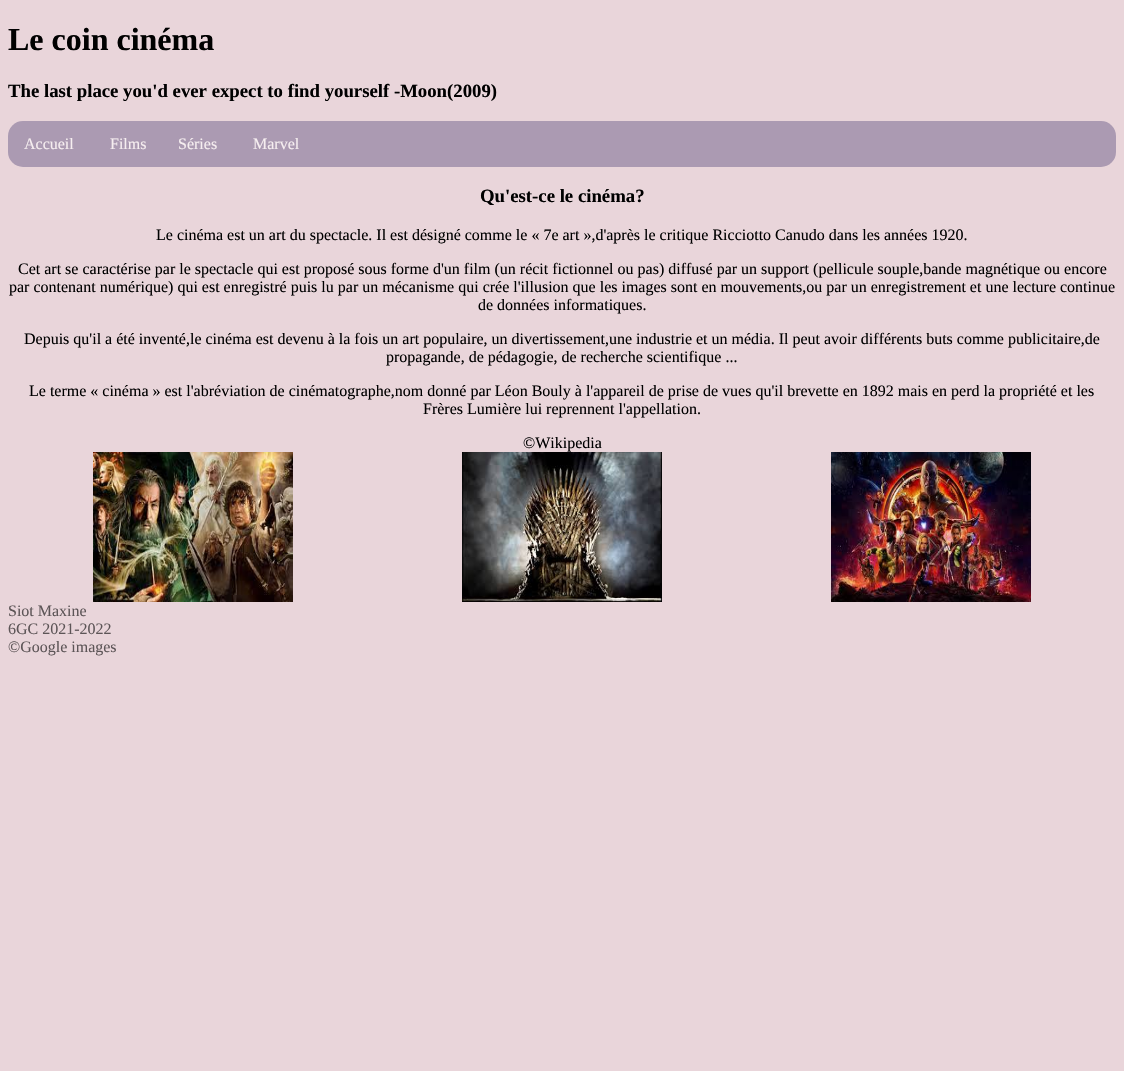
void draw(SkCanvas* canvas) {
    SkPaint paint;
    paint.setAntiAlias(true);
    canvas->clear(0xFFE9D5DA);
    SkFont font1(fontMgr->matchFamilyStyle("Liberation Serif", SkFontStyle::Bold()), 32);
    font1.setSubpixel(true);
    paint.setColor(0xFF000000);
    canvas->drawString("Le coin cinéma", 8, 50, font1, paint);
    SkFont font2(fontMgr->matchFamilyStyle("Liberation Serif", SkFontStyle::Bold()), 18.75f);
    font2.setSubpixel(true);
    canvas->drawString("The last place you'd ever expect to find yourself -Moon(2009)", 8, 97, font2, paint);
    paint.setColor(0xFFAB9AB2);
    canvas->drawRoundRect(SkRect::MakeXYWH(8, 121, 1108, 46), 15, 15, paint);
    SkFont font3(fontMgr->matchFamilyStyle("Liberation Serif", SkFontStyle::Normal()), 16);
    font3.setSubpixel(true);
    paint.setColor(0xFFF6EEF0);
    canvas->drawString("Accueil", 24, 149, font3, paint);
    canvas->drawString("Films", 110, 149, font3, paint);
    canvas->drawString("Séries", 178, 149, font3, paint);
    canvas->drawString("Marvel", 253, 149, font3, paint);
    paint.setColor(0xFF000000);
    canvas->drawString("Qu'est-ce le cinéma?", 480, 202, font2, paint);
    canvas->drawString("Le cinéma est un art du spectacle. Il est désigné comme le « 7e art »,d'après le critique Ricciotto Canudo dans les années 1920.", 156, 240, font3, paint);
    canvas->drawString("Cet art se caractérise par le spectacle qui est proposé sous forme d'un film (un récit fictionnel ou pas) diffusé par un support (pellicule souple,bande magnétique ou encore", 18, 274, font3, paint);
    canvas->drawString("par contenant numérique) qui est enregistré puis lu par un mécanisme qui crée l'illusion que les images sont en mouvements,ou par un enregistrement et une lecture continue", 9, 292, font3, paint);
    canvas->drawString("de données informatiques.", 478, 310, font3, paint);
    canvas->drawString("Depuis qu'il a été inventé,le cinéma est devenu à la fois un art populaire, un divertissement,une industrie et un média. Il peut avoir différents buts comme publicitaire,de", 24, 344, font3, paint);
    canvas->drawString("propagande, de pédagogie, de recherche scientifique ...", 386, 362, font3, paint);
    canvas->drawString("Le terme « cinéma » est l'abréviation de cinématographe,nom donné par Léon Bouly à l'appareil de prise de vues qu'il brevette en 1892 mais en perd la propriété et les", 29, 396, font3, paint);
    canvas->drawString("Frères Lumière lui reprennent l'appellation.", 423, 414, font3, paint);
    canvas->drawString("©Wikipedia", 523, 448, font3, paint);
    canvas->drawImageRect(SkImages::DeferredFromEncodedData(SkData::MakeFromFileName("img1.png")), SkRect::MakeXYWH(93, 452, 200, 150), SkSamplingOptions());
    canvas->drawImageRect(SkImages::DeferredFromEncodedData(SkData::MakeFromFileName("img2.png")), SkRect::MakeXYWH(462, 452, 200, 150), SkSamplingOptions());
    canvas->drawImageRect(SkImages::DeferredFromEncodedData(SkData::MakeFromFileName("img3.png")), SkRect::MakeXYWH(831, 452, 200, 150), SkSamplingOptions());
    paint.setColor(0xFF5D5557);
    canvas->drawString("Siot Maxine", 8, 616, font3, paint);
    canvas->drawString("6GC 2021-2022", 8, 634, font3, paint);
    canvas->drawString("©Google images", 8, 652, font3, paint);
}
